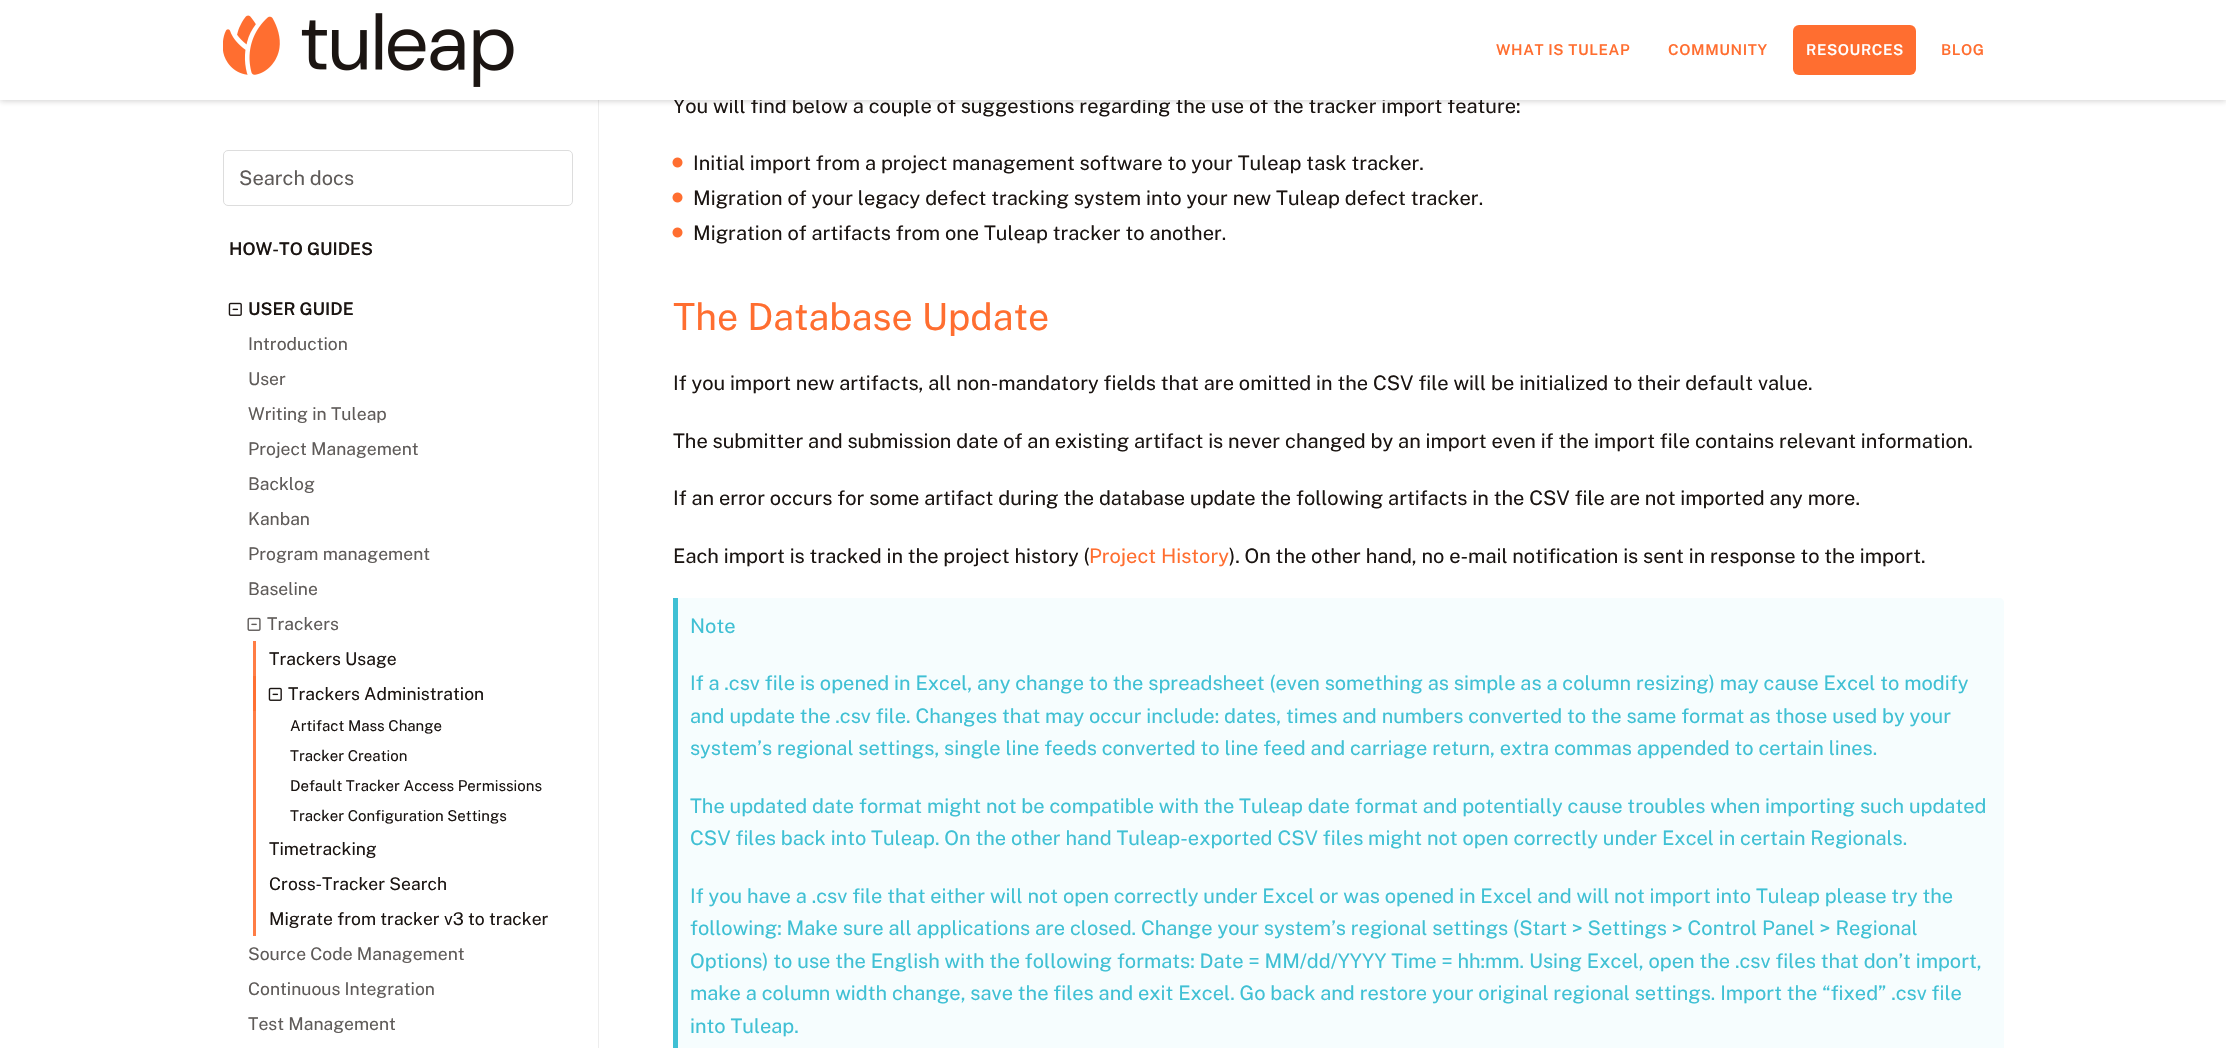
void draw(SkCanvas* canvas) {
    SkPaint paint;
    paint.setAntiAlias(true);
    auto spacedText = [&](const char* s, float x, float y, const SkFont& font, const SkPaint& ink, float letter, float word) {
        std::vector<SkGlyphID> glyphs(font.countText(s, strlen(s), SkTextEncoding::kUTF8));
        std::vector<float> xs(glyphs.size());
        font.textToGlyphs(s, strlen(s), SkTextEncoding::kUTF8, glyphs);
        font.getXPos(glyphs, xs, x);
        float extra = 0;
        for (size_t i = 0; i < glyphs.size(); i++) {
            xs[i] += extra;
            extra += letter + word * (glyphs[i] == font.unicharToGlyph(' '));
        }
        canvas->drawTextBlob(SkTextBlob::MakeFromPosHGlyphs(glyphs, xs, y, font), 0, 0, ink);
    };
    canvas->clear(0xFFFFFFFF);
    paint.setColor(0xFFFF7D45);
    canvas->drawRect(SkRect::MakeXYWH(253, 711, 3, 225), paint);
    {
        const SkColor colors[] = {0xFFFFFFFF, 0xFFEDEDED, 0xFFEDEDED};
        const float stops[] = {0, 0.03f, 1};
        const SkPoint ends[] = {{598, -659}, {598, 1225}};
        paint.setShader(SkGradientShader::MakeLinear(ends, colors, stops, 3, SkTileMode::kClamp));
        paint.setAlpha(255);
    }
    canvas->drawRect(SkRect::MakeXYWH(598, 100, 1, 948), paint);
    paint.setShader(nullptr);
    paint.setColor(0x331B1512);
    paint.setMaskFilter(SkMaskFilter::MakeBlur(kNormal_SkBlurStyle, 3));
    canvas->drawRect(SkRect::MakeXYWH(0, 1, 2226, 100), paint);
    paint.setMaskFilter(nullptr);
    SkFont font1(fontMgr->matchFamilyStyle("Public Sans", SkFontStyle::Normal()), 20);
    font1.setSubpixel(true);
    paint.setColor(0xFF1B1512);
    canvas->drawString("You will find below a couple of suggestions regarding the use of the tracker import feature:", 673, 113, font1, paint);
    paint.setColor(0xFFFFFFFF);
    canvas->drawRect(SkRect::MakeXYWH(0, 0, 2226, 100), paint);
    canvas->drawImageRect(SkImages::DeferredFromEncodedData(SkData::MakeFromFileName("img1.png")), SkRect::MakeXYWH(223, 13, 291, 74), SkSamplingOptions());
    SkFont font2(fontMgr->matchFamilyStyle("Public Sans", SkFontStyle(600, SkFontStyle::kNormal_Width, SkFontStyle::kUpright_Slant)), 15);
    font2.setSubpixel(true);
    paint.setColor(0xFFFF6E30);
    spacedText("WHAT IS TULEAP", 1496, 55, font2, paint, 0.6f, 0);
    spacedText("COMMUNITY", 1668, 55, font2, paint, 0.6f, 0);
    canvas->drawRoundRect(SkRect::MakeXYWH(1793, 25, 123, 50), 6, 6, paint);
    paint.setColor(0xFFFFFFFF);
    spacedText("RESOURCES", 1806, 55, font2, paint, 0.6f, 0);
    paint.setColor(0xFFFF6E30);
    spacedText("BLOG", 1941, 55, font2, paint, 0.6f, 0);
    paint.setStyle(SkPaint::kStroke_Style);
    paint.setStrokeWidth(1);
    paint.setColor(0xFFDDDDDD);
    canvas->drawRoundRect(SkRect::MakeXYWH(223.5f, 150.5f, 349, 55), 4.5f, 4.5f, paint);
    paint.setStyle(SkPaint::kFill_Style);
    paint.setColor(0xFF5F5B59);
    canvas->drawString("Search docs", 239, 185, font1, paint);
    SkFont font3(fontMgr->matchFamilyStyle("Public Sans", SkFontStyle(600, SkFontStyle::kNormal_Width, SkFontStyle::kUpright_Slant)), 17.5f);
    font3.setSubpixel(true);
    paint.setColor(0xFF1B1512);
    canvas->drawString("HOW-TO GUIDES", 229, 255, font3, paint);
    canvas->drawImageRect(SkImages::DeferredFromEncodedData(SkData::MakeFromFileName("img2.png")), SkRect::MakeXYWH(228, 302, 14, 14), SkSamplingOptions());
    canvas->drawString("USER GUIDE", 248, 315, font3, paint);
    SkFont font4(fontMgr->matchFamilyStyle("Public Sans", SkFontStyle::Normal()), 17.5f);
    font4.setSubpixel(true);
    paint.setColor(0xFF5F5B59);
    canvas->drawString("Introduction", 248, 350, font4, paint);
    canvas->drawString("User", 248, 385, font4, paint);
    canvas->drawString("Writing in Tuleap", 248, 420, font4, paint);
    canvas->drawString("Project Management", 248, 455, font4, paint);
    canvas->drawString("Backlog", 248, 490, font4, paint);
    canvas->drawString("Kanban", 248, 525, font4, paint);
    canvas->drawString("Program management", 248, 560, font4, paint);
    canvas->drawString("Baseline", 248, 595, font4, paint);
    canvas->drawImageRect(SkImages::DeferredFromEncodedData(SkData::MakeFromFileName("img3.png")), SkRect::MakeXYWH(247, 617, 14, 14), SkSamplingOptions());
    canvas->drawString("Trackers", 267, 630, font4, paint);
    paint.setColor(0xFFFF7D45);
    canvas->drawRect(SkRect::MakeXYWH(253, 641, 3, 35), paint);
    paint.setColor(0xFF1B1512);
    canvas->drawString("Trackers Usage", 269, 665, font4, paint);
    paint.setColor(0xFFFF7032);
    canvas->drawRect(SkRect::MakeXYWH(253, 676, 3, 35), paint);
    canvas->drawImageRect(SkImages::DeferredFromEncodedData(SkData::MakeFromFileName("img2.png")), SkRect::MakeXYWH(268, 687, 14, 14), SkSamplingOptions());
    paint.setColor(0xFF1B1512);
    canvas->drawString("Trackers Administration", 288, 700, font4, paint);
    SkFont font5(fontMgr->matchFamilyStyle("Public Sans", SkFontStyle::Normal()), 15);
    font5.setSubpixel(true);
    canvas->drawString("Artifact Mass Change", 290, 731, font5, paint);
    canvas->drawString("Tracker Creation", 290, 761, font5, paint);
    canvas->drawString("Default Tracker Access Permissions", 290, 791, font5, paint);
    canvas->drawString("Tracker Configuration Settings", 290, 821, font5, paint);
    canvas->drawString("Timetracking", 269, 855, font4, paint);
    canvas->drawString("Cross-Tracker Search", 269, 890, font4, paint);
    canvas->drawString("Migrate from tracker v3 to tracker", 269, 925, font4, paint);
    paint.setColor(0xFF5F5B59);
    canvas->drawString("Source Code Management", 248, 960, font4, paint);
    canvas->drawString("Continuous Integration", 248, 995, font4, paint);
    canvas->drawString("Test Management", 248, 1030, font4, paint);
    canvas->drawImageRect(SkImages::DeferredFromEncodedData(SkData::MakeFromFileName("img4.png")), SkRect::MakeXYWH(672, 157, 11, 11), SkSamplingOptions());
    paint.setColor(0xFF1B1512);
    canvas->drawString("Initial import from a project management software to your Tuleap task tracker.", 693, 170, font1, paint);
    canvas->drawImageRect(SkImages::DeferredFromEncodedData(SkData::MakeFromFileName("img4.png")), SkRect::MakeXYWH(672, 192, 11, 11), SkSamplingOptions());
    canvas->drawString("Migration of your legacy defect tracking system into your new Tuleap defect tracker.", 693, 205, font1, paint);
    canvas->drawImageRect(SkImages::DeferredFromEncodedData(SkData::MakeFromFileName("img4.png")), SkRect::MakeXYWH(672, 227, 11, 11), SkSamplingOptions());
    canvas->drawString("Migration of artifacts from one Tuleap tracker to another.", 693, 240, font1, paint);
    SkFont font6(fontMgr->matchFamilyStyle("Public Sans", SkFontStyle::Normal()), 37.5f);
    font6.setSubpixel(true);
    paint.setColor(0xFFFF6E30);
    canvas->drawString("The Database Update", 673, 330, font6, paint);
    paint.setColor(0xFF1B1512);
    canvas->drawString("If you import new artifacts, all non-mandatory fields that are omitted in the CSV file will be initialized to their default value.", 673, 390, font1, paint);
    canvas->drawString("The submitter and submission date of an existing artifact is never changed by an import even if the import file contains relevant information.", 673, 448, font1, paint);
    canvas->drawString("If an error occurs for some artifact during the database update the following artifacts in the CSV file are not imported any more.", 673, 505, font1, paint);
    canvas->drawString("Each import is tracked in the project history (", 673, 563, font1, paint);
    paint.setColor(0xFFFF6E30);
    canvas->drawString("Project History", 1089, 563, font1, paint);
    paint.setColor(0xFF1B1512);
    canvas->drawString("). On the other hand, no e-mail notification is sent in response to the import.", 1229, 563, font1, paint);
    paint.setColor(0xFFF6FDFE);
    canvas->drawPath(SkPathBuilder().moveTo(673, 598).lineTo(1999, 598).cubicTo(2002, 598, 2004, 600, 2004, 603).lineTo(2004, 1048).cubicTo(2004, 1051, 2002, 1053, 1999, 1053).lineTo(673, 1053).close().detach(), paint);
    paint.setColor(0xFF3FC0D4);
    canvas->drawRect(SkRect::MakeXYWH(673, 598, 5, 450), paint);
    canvas->drawString("Note", 690, 633, font1, paint);
    canvas->drawString("If a .csv file is opened in Excel, any change to the spreadsheet (even something as simple as a column resizing) may cause Excel to modify", 690, 690, font1, paint);
    canvas->drawString("and update the .csv file. Changes that may occur include: dates, times and numbers converted to the same format as those used by your", 690, 723, font1, paint);
    canvas->drawString("system’s regional settings, single line feeds converted to line feed and carriage return, extra commas appended to certain lines.", 690, 755, font1, paint);
    canvas->drawString("The updated date format might not be compatible with the Tuleap date format and potentially cause troubles when importing such updated", 690, 813, font1, paint);
    canvas->drawString("CSV files back into Tuleap. On the other hand Tuleap-exported CSV files might not open correctly under Excel in certain Regionals.", 690, 845, font1, paint);
    canvas->drawString("If you have a .csv file that either will not open correctly under Excel or was opened in Excel and will not import into Tuleap please try the", 690, 903, font1, paint);
    canvas->drawString("following: Make sure all applications are closed. Change your system’s regional settings (Start > Settings > Control Panel > Regional", 690, 935, font1, paint);
    canvas->drawString("Options) to use the English with the following formats: Date = MM/dd/YYYY Time = hh:mm. Using Excel, open the .csv files that don’t import,", 690, 968, font1, paint);
    canvas->drawString("make a column width change, save the files and exit Excel. Go back and restore your original regional settings. Import the “fixed” .csv file", 690, 1000, font1, paint);
    canvas->drawString("into Tuleap.", 690, 1033, font1, paint);
}
